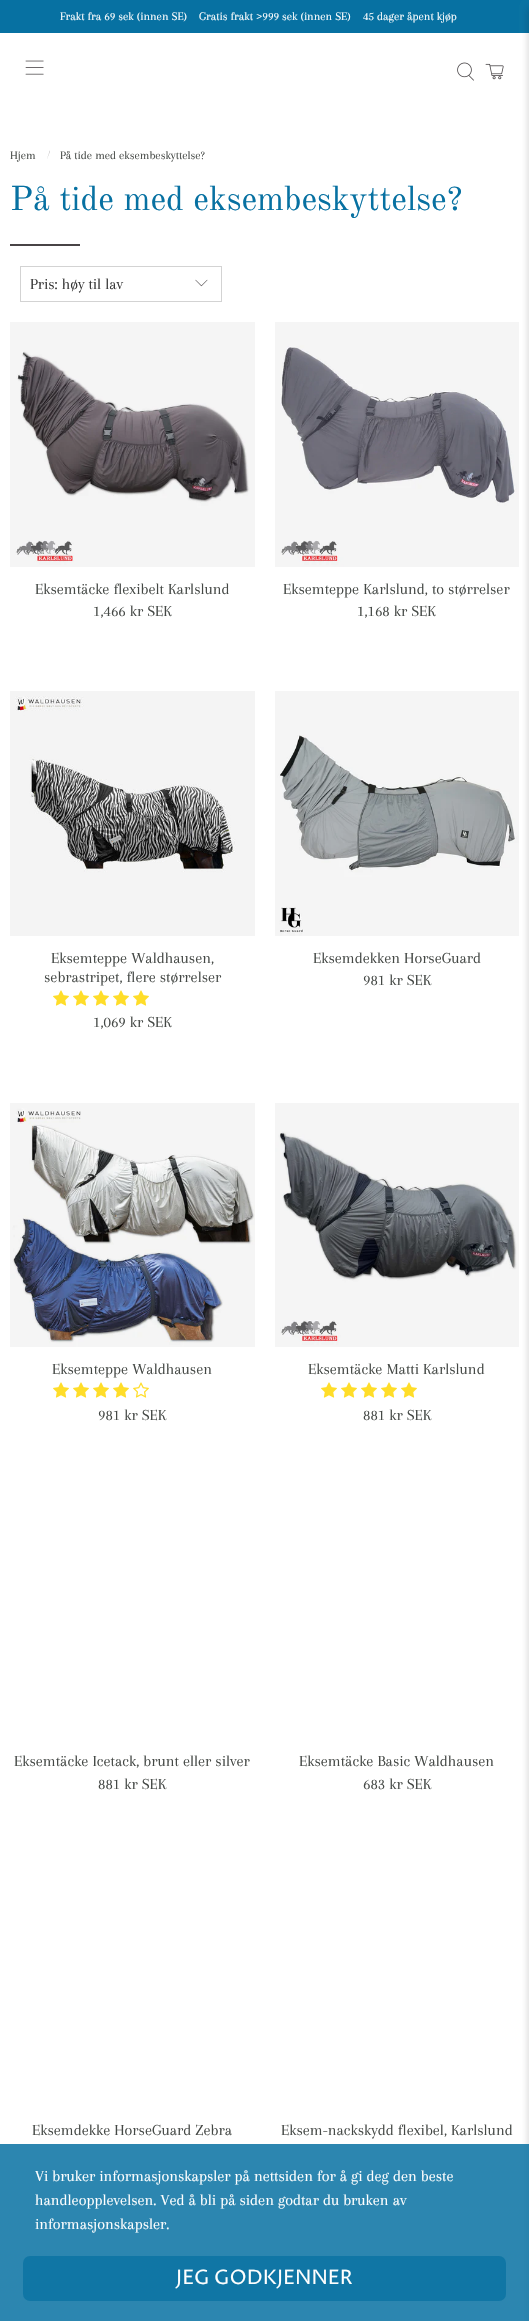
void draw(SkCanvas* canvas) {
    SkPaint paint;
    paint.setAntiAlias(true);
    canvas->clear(0xFFFFFFFF);
    canvas->drawImageRect(SkImages::DeferredFromEncodedData(SkData::MakeFromFileName("img1.png")), SkRect::MakeXYWH(25, 60, 19, 15), SkSamplingOptions());
    canvas->drawImageRect(SkImages::DeferredFromEncodedData(SkData::MakeFromFileName("img2.png")), SkRect::MakeXYWH(457, 62, 17, 19), SkSamplingOptions());
    canvas->drawImageRect(SkImages::DeferredFromEncodedData(SkData::MakeFromFileName("img3.png")), SkRect::MakeXYWH(485, 63, 19, 17), SkSamplingOptions());
    paint.setColor(0xFF0771A2);
    canvas->drawRect(SkRect::MakeXYWH(0, 0, 529, 33), paint);
    canvas->drawImageRect(SkImages::DeferredFromEncodedData(SkData::MakeFromFileName("img6.png")), SkRect::MakeXYWH(275, 322, 244, 245), SkSamplingOptions());
    canvas->drawImageRect(SkImages::DeferredFromEncodedData(SkData::MakeFromFileName("img9.png")), SkRect::MakeXYWH(275, 691, 244, 245), SkSamplingOptions());
    canvas->drawImageRect(SkImages::DeferredFromEncodedData(SkData::MakeFromFileName("img12.png")), SkRect::MakeXYWH(275, 1103, 244, 244), SkSamplingOptions());
    paint.setColor(0x1A0A0A0A);
    paint.setMaskFilter(SkMaskFilter::MakeBlur(kNormal_SkBlurStyle, 4));
    canvas->drawRect(SkRect::MakeXYWH(529, 8, 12, 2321), paint);
    paint.setMaskFilter(nullptr);
    SkFont font1(fontMgr->matchFamilyStyle("Arapey", SkFontStyle::Normal()), 12);
    font1.setSubpixel(true);
    paint.setColor(0xFFFFFFFF);
    canvas->drawString("Frakt fra 69 sek (innen SE)", 60, 20, font1, paint);
    canvas->drawString("Gratis frakt >999 sek (innen SE)", 199, 20, font1, paint);
    canvas->drawString("45 dager åpent kjøp", 363, 20, font1, paint);
    paint.setColor(0x1A0A0A0A);
    paint.setMaskFilter(SkMaskFilter::MakeBlur(kNormal_SkBlurStyle, 4));
    canvas->drawRect(SkRect::MakeXYWH(529, 8, 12, 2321), paint);
    paint.setMaskFilter(nullptr);
    paint.setColor(0xFF444845);
    canvas->drawString("Hjem", 10, 159, font1, paint);
    paint.setColor(0xFF484446);
    canvas->drawPath(SkPathBuilder().moveTo(46, 161.5f).lineTo(50, 150.5f).lineTo(50, 151).close().detach(), paint);
    paint.setColor(0xFF444845);
    canvas->drawString("På tide med eksembeskyttelse?", 60, 159, font1, paint);
    SkFont font2(fontMgr->matchFamilyStyle("Old Standard TT", SkFontStyle::Normal()), 34);
    font2.setSubpixel(true);
    paint.setColor(0xFF0771A2);
    canvas->drawString("På tide med eksembeskyttelse?", 10, 210, font2, paint);
    paint.setColor(0xFF484446);
    canvas->drawRect(SkRect::MakeXYWH(10, 244, 70, 2), paint);
    paint.setStyle(SkPaint::kStroke_Style);
    paint.setStrokeWidth(1);
    paint.setColor(0xFFD3D3D3);
    canvas->drawRect(SkRect::MakeXYWH(20.5f, 266.5f, 201, 35), paint);
    SkFont font3(fontMgr->matchFamilyStyle("Arapey", SkFontStyle::Normal()), 16);
    font3.setSubpixel(true);
    paint.setStyle(SkPaint::kFill_Style);
    paint.setColor(0xFF363636);
    canvas->drawString("Pris: høy til lav", 30, 289, font3, paint);
    canvas->drawImageRect(SkImages::DeferredFromEncodedData(SkData::MakeFromFileName("img4.png")), SkRect::MakeXYWH(195, 279, 13, 8), SkSamplingOptions());
    canvas->drawImageRect(SkImages::DeferredFromEncodedData(SkData::MakeFromFileName("img5.png")), SkRect::MakeXYWH(10, 322, 245, 245), SkSamplingOptions());
    paint.setColor(0xFF444845);
    canvas->drawString("Eksemtäcke flexibelt Karlslund", 35, 594, font3, paint);
    canvas->drawString("1,466 kr SEK", 93, 616, font3, paint);
    canvas->drawString("Eksemteppe Karlslund, to størrelser", 283, 594, font3, paint);
    canvas->drawString("1,168 kr SEK", 357, 616, font3, paint);
    canvas->drawImageRect(SkImages::DeferredFromEncodedData(SkData::MakeFromFileName("img7.png")), SkRect::MakeXYWH(10, 691, 245, 245), SkSamplingOptions());
    canvas->drawString("Eksemteppe Waldhausen,", 51, 963, font3, paint);
    canvas->drawString("sebrastripet, flere størrelser", 44, 982, font3, paint);
    canvas->drawImageRect(SkImages::DeferredFromEncodedData(SkData::MakeFromFileName("img8.png")), SkRect::MakeXYWH(53, 990, 16, 16), SkSamplingOptions());
    canvas->drawImageRect(SkImages::DeferredFromEncodedData(SkData::MakeFromFileName("img8.png")), SkRect::MakeXYWH(73, 990, 16, 16), SkSamplingOptions());
    canvas->drawImageRect(SkImages::DeferredFromEncodedData(SkData::MakeFromFileName("img8.png")), SkRect::MakeXYWH(93, 990, 16, 16), SkSamplingOptions());
    canvas->drawImageRect(SkImages::DeferredFromEncodedData(SkData::MakeFromFileName("img8.png")), SkRect::MakeXYWH(113, 990, 16, 16), SkSamplingOptions());
    canvas->drawImageRect(SkImages::DeferredFromEncodedData(SkData::MakeFromFileName("img8.png")), SkRect::MakeXYWH(133, 990, 16, 16), SkSamplingOptions());
    canvas->drawString("1,069 kr SEK", 93, 1027, font3, paint);
    canvas->drawString("Eksemdekken HorseGuard", 313, 963, font3, paint);
    canvas->drawString("981 kr SEK", 363, 985, font3, paint);
    canvas->drawImageRect(SkImages::DeferredFromEncodedData(SkData::MakeFromFileName("img10.png")), SkRect::MakeXYWH(10, 1103, 245, 244), SkSamplingOptions());
    canvas->drawString("Eksemteppe Waldhausen", 52, 1374, font3, paint);
    canvas->drawImageRect(SkImages::DeferredFromEncodedData(SkData::MakeFromFileName("img8.png")), SkRect::MakeXYWH(53, 1382, 16, 16), SkSamplingOptions());
    canvas->drawImageRect(SkImages::DeferredFromEncodedData(SkData::MakeFromFileName("img8.png")), SkRect::MakeXYWH(73, 1382, 16, 16), SkSamplingOptions());
    canvas->drawImageRect(SkImages::DeferredFromEncodedData(SkData::MakeFromFileName("img8.png")), SkRect::MakeXYWH(93, 1382, 16, 16), SkSamplingOptions());
    canvas->drawImageRect(SkImages::DeferredFromEncodedData(SkData::MakeFromFileName("img8.png")), SkRect::MakeXYWH(113, 1382, 16, 16), SkSamplingOptions());
    canvas->drawImageRect(SkImages::DeferredFromEncodedData(SkData::MakeFromFileName("img11.png")), SkRect::MakeXYWH(133, 1382, 16, 16), SkSamplingOptions());
    canvas->drawString("981 kr SEK", 98, 1420, font3, paint);
    canvas->drawString("Eksemtäcke Matti Karlslund", 308, 1374, font3, paint);
    canvas->drawImageRect(SkImages::DeferredFromEncodedData(SkData::MakeFromFileName("img8.png")), SkRect::MakeXYWH(321, 1382, 16, 16), SkSamplingOptions());
    canvas->drawImageRect(SkImages::DeferredFromEncodedData(SkData::MakeFromFileName("img8.png")), SkRect::MakeXYWH(341, 1382, 16, 16), SkSamplingOptions());
    canvas->drawImageRect(SkImages::DeferredFromEncodedData(SkData::MakeFromFileName("img8.png")), SkRect::MakeXYWH(361, 1382, 16, 16), SkSamplingOptions());
    canvas->drawImageRect(SkImages::DeferredFromEncodedData(SkData::MakeFromFileName("img8.png")), SkRect::MakeXYWH(381, 1382, 16, 16), SkSamplingOptions());
    canvas->drawImageRect(SkImages::DeferredFromEncodedData(SkData::MakeFromFileName("img8.png")), SkRect::MakeXYWH(401, 1382, 16, 16), SkSamplingOptions());
    canvas->drawString("881 kr SEK", 363, 1420, font3, paint);
    canvas->drawString("Eksemtäcke Icetack, brunt eller silver", 14, 1766, font3, paint);
    canvas->drawString("881 kr SEK", 98, 1789, font3, paint);
    canvas->drawString("Eksemtäcke Basic Waldhausen", 299, 1766, font3, paint);
    canvas->drawString("683 kr SEK", 363, 1789, font3, paint);
    canvas->drawString("Eksemdekke HorseGuard Zebra", 32, 2135, font3, paint);
    canvas->drawString("Eksem-nackskydd flexibel, Karlslund", 281, 2135, font3, paint);
    paint.setColor(0xD90771A2);
    canvas->drawRect(SkRect::MakeXYWH(0, 2144, 529, 177), paint);
    paint.setColor(0xFFFFFFFF);
    canvas->drawString("Vi bruker informasjonskapsler på nettsiden for å gi deg den beste", 35, 2181, font3, paint);
    canvas->drawString("handleopplevelsen. Ved å bli på siden godtar du bruken av", 35, 2205, font3, paint);
    canvas->drawString("informasjonskapsler.", 35, 2229, font3, paint);
    paint.setColor(0xFF1076A5);
    canvas->drawRoundRect(SkRect::MakeXYWH(23, 2256, 483, 45), 7, 7, paint);
    SkFont font4(fontMgr->matchFamilyStyle("Proza Libre", SkFontStyle::Normal()), 20);
    font4.setSubpixel(true);
    paint.setColor(0xFFFFFFFF);
    canvas->drawString("JEG GODKJENNER", 176, 2284, font4, paint);
}
